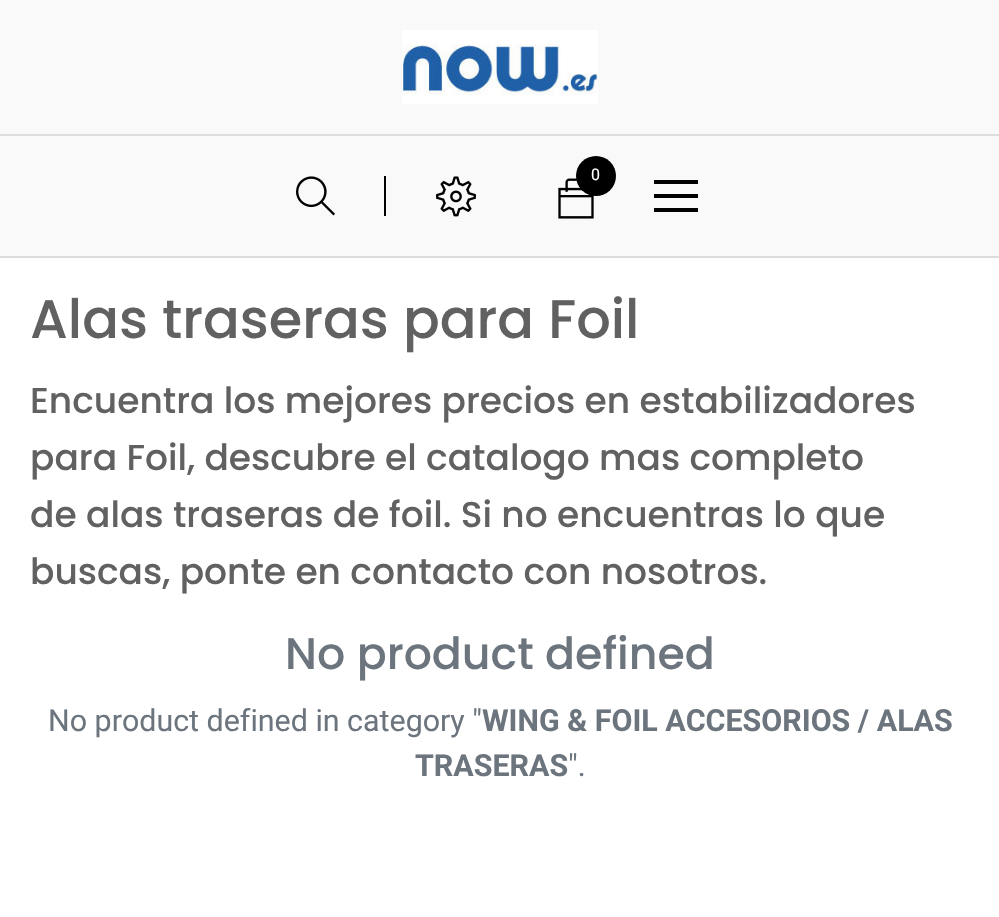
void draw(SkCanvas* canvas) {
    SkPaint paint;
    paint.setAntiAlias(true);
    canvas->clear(0xFFFFFFFF);
    paint.setColor(0xFFF9F9F9);
    canvas->drawRect(SkRect::MakeXYWH(0, 0, 999, 256), paint);
    canvas->drawImageRect(SkImages::DeferredFromEncodedData(SkData::MakeFromFileName("img1.png")), SkRect::MakeXYWH(402, 30, 196, 74), SkSamplingOptions());
    paint.setColor(0xFFDDDDDD);
    canvas->drawRect(SkRect::MakeXYWH(0, 134, 999, 2), paint);
    canvas->drawRect(SkRect::MakeXYWH(0, 256, 999, 2), paint);
    canvas->drawImageRect(SkImages::DeferredFromEncodedData(SkData::MakeFromFileName("img2.png")), SkRect::MakeXYWH(558, 178, 36, 41), SkSamplingOptions());
    paint.setColor(0xFF000000);
    canvas->drawCircle(596, 176, 20, paint);
    SkFont font1(fontMgr->matchFamilyStyle("Roboto", SkFontStyle::Normal()), 16);
    font1.setSubpixel(true);
    paint.setColor(0xFFFFFFFF);
    canvas->drawString("0", 591, 180, font1, paint);
    canvas->drawImageRect(SkImages::DeferredFromEncodedData(SkData::MakeFromFileName("img3.png")), SkRect::MakeXYWH(296, 176, 39, 40), SkSamplingOptions());
    paint.setColor(0xFF000000);
    canvas->drawRect(SkRect::MakeXYWH(384, 176, 2, 40), paint);
    canvas->drawImageRect(SkImages::DeferredFromEncodedData(SkData::MakeFromFileName("img4.png")), SkRect::MakeXYWH(436, 176, 40, 41), SkSamplingOptions());
    canvas->drawRect(SkRect::MakeXYWH(654, 180, 44, 4), paint);
    canvas->drawRect(SkRect::MakeXYWH(654, 208, 44, 4), paint);
    canvas->drawRect(SkRect::MakeXYWH(654, 194, 44, 4), paint);
    SkFont font2(fontMgr->matchFamilyStyle("Poppins", SkFontStyle(500, SkFontStyle::kNormal_Width, SkFontStyle::kUpright_Slant)), 54.25f);
    font2.setSubpixel(true);
    paint.setColor(0xFF616161);
    canvas->drawString("Alas traseras para Foil", 30, 338, font2, paint);
    SkFont font3(fontMgr->matchFamilyStyle("Poppins", SkFontStyle(500, SkFontStyle::kNormal_Width, SkFontStyle::kUpright_Slant)), 36);
    font3.setSubpixel(true);
    canvas->drawString("Encuentra los mejores precios en estabilizadores", 30, 413, font3, paint);
    canvas->drawString("para Foil, descubre el catalogo mas completo", 30, 470, font3, paint);
    canvas->drawString("de alas traseras de foil. Si no encuentras lo que", 30, 527, font3, paint);
    canvas->drawString("buscas, ponte en contacto con nosotros.", 30, 584, font3, paint);
    SkFont font4(fontMgr->matchFamilyStyle("Poppins", SkFontStyle(500, SkFontStyle::kNormal_Width, SkFontStyle::kUpright_Slant)), 44.25f);
    font4.setSubpixel(true);
    paint.setColor(0xFF6C757D);
    canvas->drawString("No product defined", 285, 669, font4, paint);
    SkFont font5(fontMgr->matchFamilyStyle("Roboto", SkFontStyle::Normal()), 30.4f);
    font5.setSubpixel(true);
    canvas->drawString("No product defined in category \"", 48, 731, font5, paint);
    SkFont font6(fontMgr->matchFamilyStyle("Roboto", SkFontStyle::Bold()), 30.4f);
    font6.setSubpixel(true);
    canvas->drawString("WING & FOIL ACCESORIOS / ALAS", 482, 731, font6, paint);
    canvas->drawString("TRASERAS", 415, 776, font6, paint);
    canvas->drawString("\".", 568, 776, font5, paint);
}
